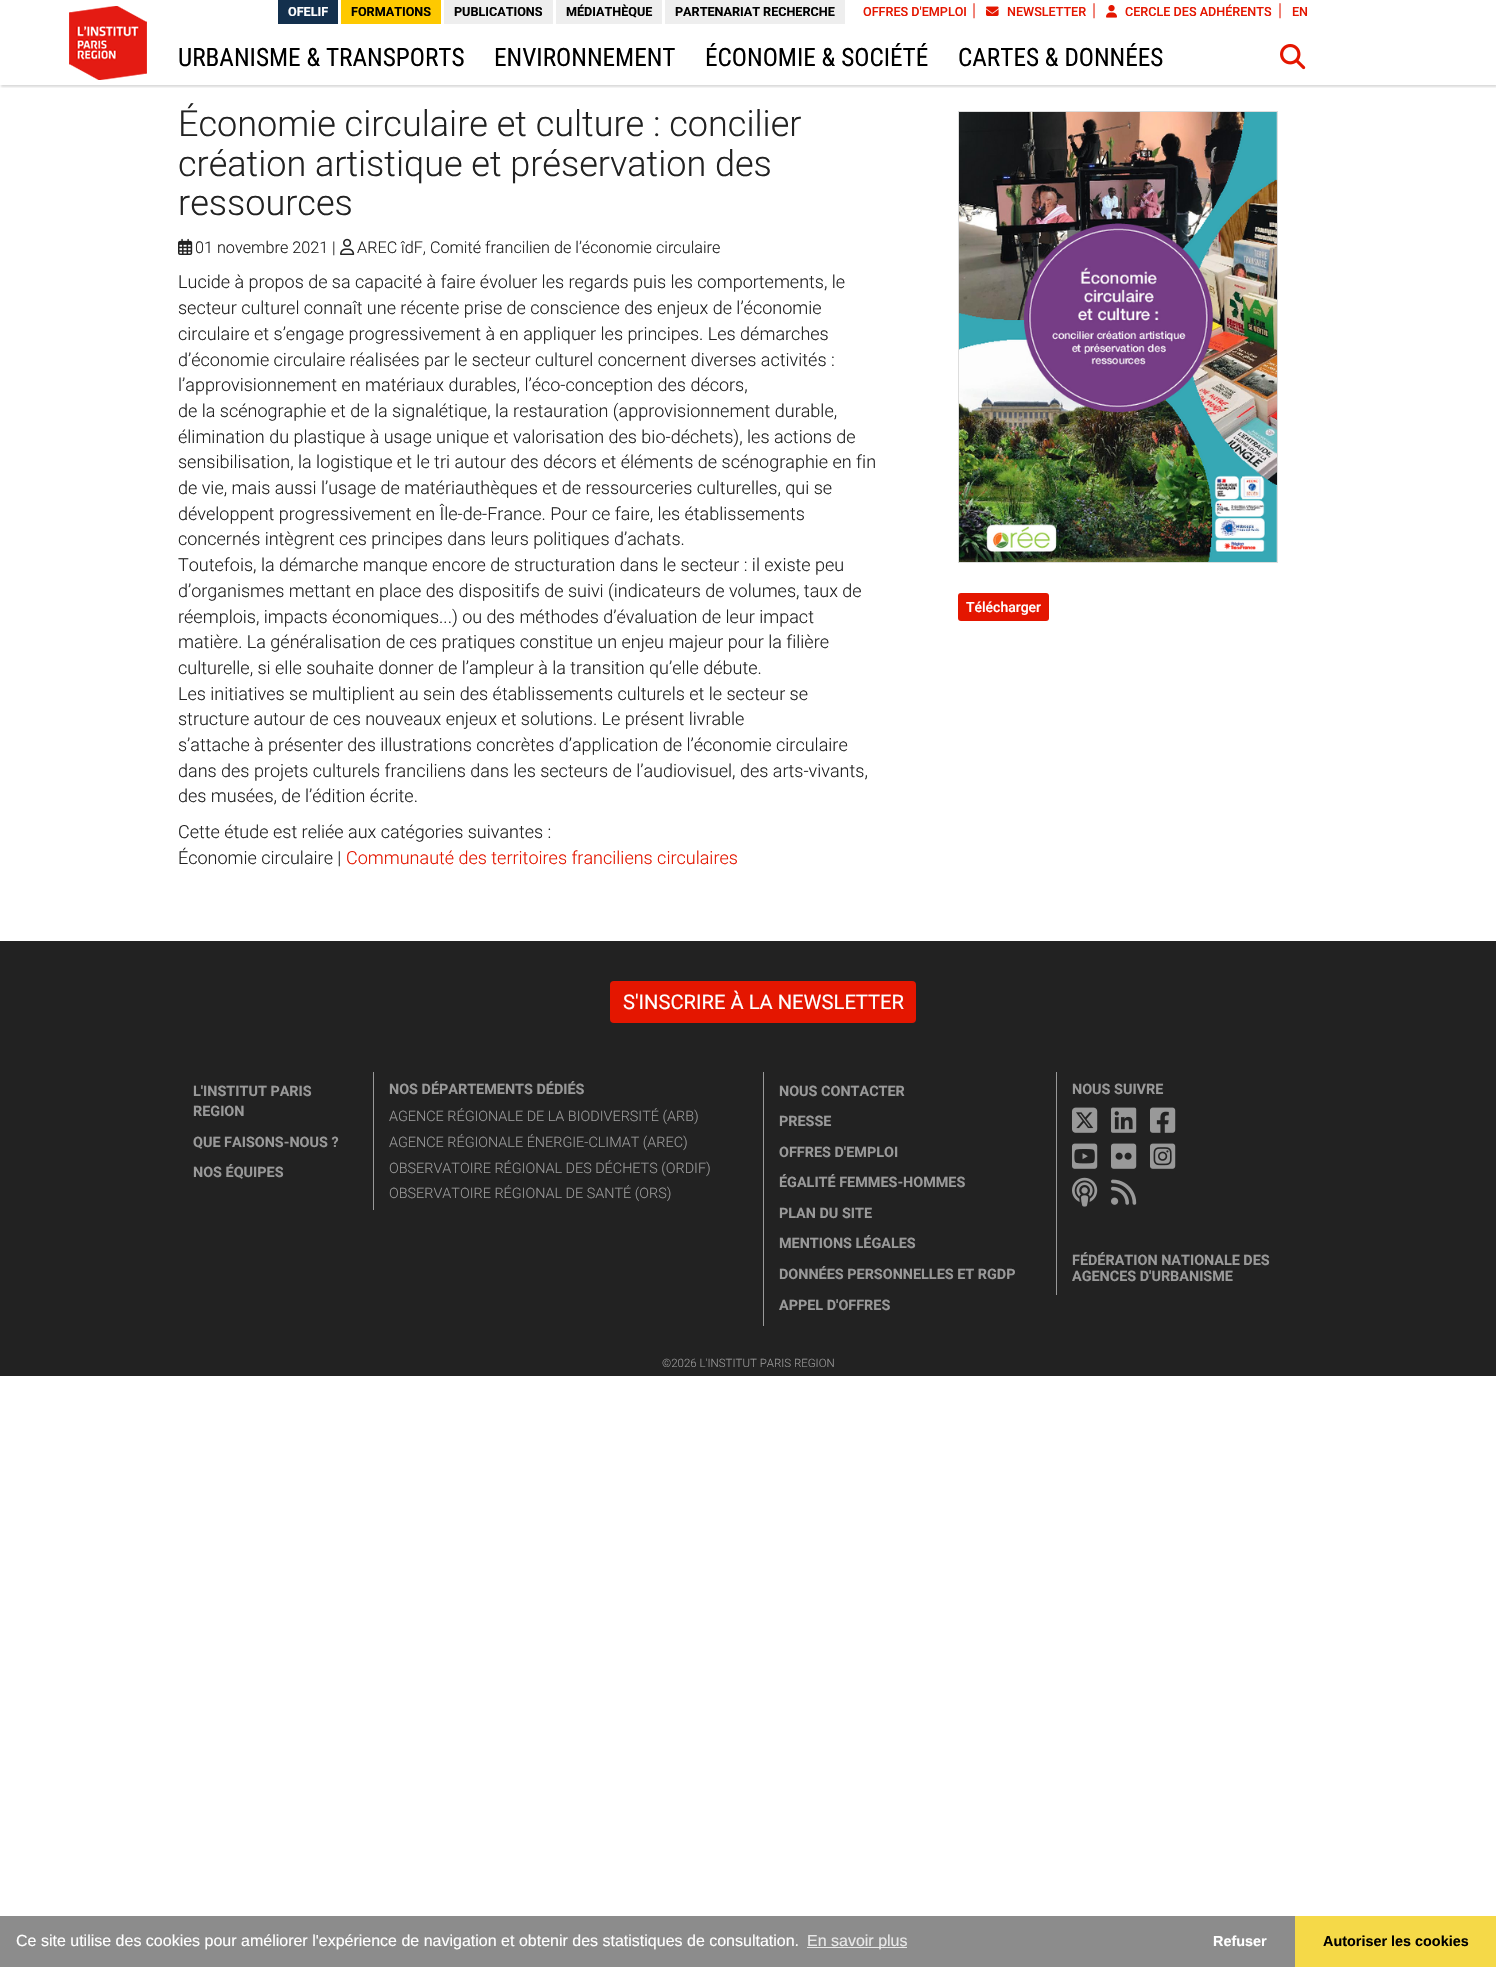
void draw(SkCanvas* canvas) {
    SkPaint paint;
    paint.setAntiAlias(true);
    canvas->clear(0xFFFFFFFF);
    canvas->save();
    canvas->clipRect(SkRect::MakeXYWH(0, 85, 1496, 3));
    paint.setColor(0x29171717);
    paint.setMaskFilter(SkMaskFilter::MakeBlur(kNormal_SkBlurStyle, 1));
    canvas->drawRect(SkRect::MakeXYWH(1, 2, 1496, 85), paint);
    paint.setMaskFilter(nullptr);
    canvas->restore();
    canvas->drawImageRect(SkImages::DeferredFromEncodedData(SkData::MakeFromFileName("img1.png")), SkRect::MakeXYWH(69, 6, 78, 74), SkSamplingOptions());
    paint.setColor(0xFF13304D);
    canvas->drawRect(SkRect::MakeXYWH(278, 0, 60, 24), paint);
    SkFont font1(fontMgr->matchFamilyStyle("Roboto", SkFontStyle::Bold()), 12.6f);
    font1.setSubpixel(true);
    paint.setColor(0xFFFFFFFF);
    canvas->drawString("OFELIF", 288, 16, font1, paint);
    paint.setColor(0xFFFEC900);
    canvas->drawRect(SkRect::MakeXYWH(341, 0, 100, 24), paint);
    paint.setColor(0xFF000000);
    canvas->drawString("FORMATIONS", 351, 16, font1, paint);
    paint.setColor(0xFFEEEEEE);
    canvas->drawRect(SkRect::MakeXYWH(444, 0, 109, 24), paint);
    paint.setColor(0xFF000000);
    canvas->drawString("PUBLICATIONS", 454, 16, font1, paint);
    paint.setColor(0xFFEEEEEE);
    canvas->drawRect(SkRect::MakeXYWH(556, 0, 106, 24), paint);
    paint.setColor(0xFF000000);
    canvas->drawString("MÉDIATHÈQUE", 566, 16, font1, paint);
    paint.setColor(0xFFEEEEEE);
    canvas->drawRect(SkRect::MakeXYWH(665, 0, 180, 24), paint);
    paint.setColor(0xFF000000);
    canvas->drawString("PARTENARIAT RECHERCHE", 675, 16, font1, paint);
    SkFont font2(fontMgr->matchFamilyStyle("Roboto", SkFontStyle(500, SkFontStyle::kNormal_Width, SkFontStyle::kUpright_Slant)), 12.6f);
    font2.setSubpixel(true);
    paint.setColor(0xFFE41600);
    canvas->drawString("OFFRES D'EMPLOI", 863, 16, font2, paint);
    SkFont font3(fontMgr->matchFamilyStyle("Roboto", SkFontStyle(300, SkFontStyle::kNormal_Width, SkFontStyle::kUpright_Slant)), 18);
    font3.setSubpixel(true);
    canvas->drawString("|", 972, 16, font3, paint);
    canvas->drawImageRect(SkImages::DeferredFromEncodedData(SkData::MakeFromFileName("img2.png")), SkRect::MakeXYWH(986, 6, 13, 10), SkSamplingOptions());
    canvas->drawString("NEWSLETTER", 1007, 16, font2, paint);
    canvas->drawString("|", 1092, 16, font3, paint);
    canvas->drawImageRect(SkImages::DeferredFromEncodedData(SkData::MakeFromFileName("img3.png")), SkRect::MakeXYWH(1106, 5, 11, 13), SkSamplingOptions());
    canvas->drawString("CERCLE DES ADHÉRENTS", 1125, 16, font2, paint);
    canvas->drawString("|", 1278, 16, font3, paint);
    canvas->drawString("EN", 1292, 16, font2, paint);
    SkFont font4(fontMgr->matchFamilyStyle("Roboto Condensed", SkFontStyle::Normal()), 25.25f);
    font4.setSubpixel(true);
    paint.setColor(0xFF000000);
    canvas->drawString("URBANISME & TRANSPORTS", 178, 66, font4, paint);
    canvas->drawString("ENVIRONNEMENT", 494, 66, font4, paint);
    canvas->drawString("ÉCONOMIE & SOCIÉTÉ", 705, 66, font4, paint);
    canvas->drawString("CARTES & DONNÉES", 958, 66, font4, paint);
    canvas->drawImageRect(SkImages::DeferredFromEncodedData(SkData::MakeFromFileName("img4.png")), SkRect::MakeXYWH(1280, 43, 26, 27), SkSamplingOptions());
    SkFont font5(fontMgr->matchFamilyStyle("Roboto", SkFontStyle(300, SkFontStyle::kNormal_Width, SkFontStyle::kUpright_Slant)), 36);
    font5.setSubpixel(true);
    paint.setColor(0xFF222222);
    canvas->drawString("Économie circulaire et culture : concilier", 178, 136, font5, paint);
    canvas->drawString("création artistique et préservation des", 178, 176, font5, paint);
    canvas->drawString("ressources", 178, 215, font5, paint);
    canvas->drawImageRect(SkImages::DeferredFromEncodedData(SkData::MakeFromFileName("img5.png")), SkRect::MakeXYWH(178, 238, 15, 17), SkSamplingOptions());
    SkFont font6(fontMgr->matchFamilyStyle("Roboto", SkFontStyle(300, SkFontStyle::kNormal_Width, SkFontStyle::kUpright_Slant)), 16.2f);
    font6.setSubpixel(true);
    canvas->drawString("01 novembre 2021 |", 195, 253, font6, paint);
    canvas->drawImageRect(SkImages::DeferredFromEncodedData(SkData::MakeFromFileName("img6.png")), SkRect::MakeXYWH(340, 238, 15, 17), SkSamplingOptions());
    canvas->drawString("AREC îdF, Comité francilien de l’économie circulaire", 357, 253, font6, paint);
    canvas->drawString("Lucide à propos de sa capacité à faire évoluer les regards puis les comportements, le", 178, 288, font3, paint);
    canvas->drawString("secteur culturel connaît une récente prise de conscience des enjeux de l’économie", 178, 314, font3, paint);
    canvas->drawString("circulaire et s’engage progressivement à en appliquer les principes. Les démarches", 178, 340, font3, paint);
    canvas->drawString("d’économie circulaire réalisées par le secteur culturel concernent diverses activités :", 178, 366, font3, paint);
    canvas->drawString("l’approvisionnement en matériaux durables, l’éco-conception des décors,", 178, 391, font3, paint);
    canvas->drawString("de la scénographie et de la signalétique, la restauration (approvisionnement durable,", 178, 417, font3, paint);
    canvas->drawString("élimination du plastique à usage unique et valorisation des bio-déchets), les actions de", 178, 443, font3, paint);
    canvas->drawString("sensibilisation, la logistique et le tri autour des décors et éléments de scénographie en fin", 178, 468, font3, paint);
    canvas->drawString("de vie, mais aussi l’usage de matériauthèques et de ressourceries culturelles, qui se", 178, 494, font3, paint);
    canvas->drawString("développent progressivement en Île-de-France. Pour ce faire, les établissements", 178, 520, font3, paint);
    canvas->drawString("concernés intègrent ces principes dans leurs politiques d’achats.", 178, 545, font3, paint);
    canvas->drawString("Toutefois, la démarche manque encore de structuration dans le secteur : il existe peu", 178, 571, font3, paint);
    canvas->drawString("d’organismes mettant en place des dispositifs de suivi (indicateurs de volumes, taux de", 178, 597, font3, paint);
    canvas->drawString("réemplois, impacts économiques...) ou des méthodes d’évaluation de leur impact", 178, 623, font3, paint);
    canvas->drawString("matière. La généralisation de ces pratiques constitue un enjeu majeur pour la filière", 178, 648, font3, paint);
    canvas->drawString("culturelle, si elle souhaite donner de l’ampleur à la transition qu’elle débute.", 178, 674, font3, paint);
    canvas->drawString("Les initiatives se multiplient au sein des établissements culturels et le secteur se", 178, 700, font3, paint);
    canvas->drawString("structure autour de ces nouveaux enjeux et solutions. Le présent livrable", 178, 725, font3, paint);
    canvas->drawString("s’attache à présenter des illustrations concrètes d’application de l’économie circulaire", 178, 751, font3, paint);
    canvas->drawString("dans des projets culturels franciliens dans les secteurs de l’audiovisuel, des arts-vivants,", 178, 777, font3, paint);
    canvas->drawString("des musées, de l’édition écrite.", 178, 802, font3, paint);
    canvas->drawString("Cette étude est reliée aux catégories suivantes :", 178, 838, font3, paint);
    canvas->drawString("Économie circulaire |", 178, 864, font3, paint);
    paint.setColor(0xFFE41600);
    canvas->drawString("Communauté des territoires franciliens circulaires", 346, 864, font3, paint);
    paint.setStyle(SkPaint::kStroke_Style);
    paint.setStrokeWidth(1);
    paint.setColor(0xFFDDDDDD);
    canvas->drawRect(SkRect::MakeXYWH(958.5f, 111.5f, 319, 451), paint);
    canvas->drawImageRect(SkImages::DeferredFromEncodedData(SkData::MakeFromFileName("img7.png")), SkRect::MakeXYWH(959, 112, 318, 450), SkSamplingOptions());
    paint.setStyle(SkPaint::kFill_Style);
    paint.setColor(0xFFE41600);
    canvas->drawRoundRect(SkRect::MakeXYWH(958, 593, 91, 28), 3, 3, paint);
    SkFont font7(fontMgr->matchFamilyStyle("Roboto", SkFontStyle(500, SkFontStyle::kNormal_Width, SkFontStyle::kUpright_Slant)), 14);
    font7.setSubpixel(true);
    paint.setColor(0xFFFFFFFF);
    canvas->drawString("Télécharger", 966, 612, font7, paint);
    paint.setColor(0xFF222222);
    canvas->drawRect(SkRect::MakeXYWH(0, 941, 1496, 435), paint);
    paint.setColor(0xFFE41600);
    canvas->drawRoundRect(SkRect::MakeXYWH(610, 981, 306, 42), 4, 4, paint);
    SkFont font8(fontMgr->matchFamilyStyle("Roboto", SkFontStyle::Normal()), 20.2f);
    font8.setSubpixel(true);
    paint.setColor(0xFFFFFFFF);
    canvas->drawString("S'INSCRIRE À LA NEWSLETTER", 623, 1009, font8, paint);
    SkFont font9(fontMgr->matchFamilyStyle("Roboto", SkFontStyle::Bold()), 14.4f);
    font9.setSubpixel(true);
    paint.setColor(0xFF999999);
    canvas->drawString("L'INSTITUT PARIS", 193, 1096, font9, paint);
    canvas->drawString("REGION", 193, 1116, font9, paint);
    canvas->drawString("QUE FAISONS-NOUS ?", 193, 1147, font9, paint);
    canvas->drawString("NOS ÉQUIPES", 193, 1177, font9, paint);
    canvas->drawRect(SkRect::MakeXYWH(373, 1072, 1, 138), paint);
    canvas->drawString("NOS DÉPARTEMENTS DÉDIÉS", 389, 1094, font9, paint);
    SkFont font10(fontMgr->matchFamilyStyle("Roboto", SkFontStyle(300, SkFontStyle::kNormal_Width, SkFontStyle::kUpright_Slant)), 14.4f);
    font10.setSubpixel(true);
    canvas->drawString("AGENCE RÉGIONALE DE LA BIODIVERSITÉ (ARB)", 389, 1121, font10, paint);
    canvas->drawString("AGENCE RÉGIONALE ÉNERGIE-CLIMAT (AREC)", 389, 1147, font10, paint);
    canvas->drawString("OBSERVATOIRE RÉGIONAL DES DÉCHETS (ORDIF)", 389, 1173, font10, paint);
    canvas->drawString("OBSERVATOIRE RÉGIONAL DE SANTÉ (ORS)", 389, 1198, font10, paint);
    canvas->drawRect(SkRect::MakeXYWH(763, 1072, 1, 254), paint);
    canvas->drawString("NOUS CONTACTER", 779, 1096, font9, paint);
    canvas->drawString("PRESSE", 779, 1126, font9, paint);
    canvas->drawString("OFFRES D'EMPLOI", 779, 1157, font9, paint);
    canvas->drawString("ÉGALITÉ FEMMES-HOMMES", 779, 1187, font9, paint);
    canvas->drawString("PLAN DU SITE", 779, 1218, font9, paint);
    canvas->drawString("MENTIONS LÉGALES", 779, 1248, font9, paint);
    canvas->drawString("DONNÉES PERSONNELLES ET RGDP", 779, 1279, font9, paint);
    canvas->drawString("APPEL D'OFFRES", 779, 1310, font9, paint);
    canvas->drawRect(SkRect::MakeXYWH(1056, 1072, 1, 223), paint);
    canvas->drawString("NOUS SUIVRE", 1072, 1094, font9, paint);
    canvas->drawImageRect(SkImages::DeferredFromEncodedData(SkData::MakeFromFileName("img8.png")), SkRect::MakeXYWH(1072, 1107, 26, 26), SkSamplingOptions());
    canvas->drawImageRect(SkImages::DeferredFromEncodedData(SkData::MakeFromFileName("img9.png")), SkRect::MakeXYWH(1111, 1107, 26, 26), SkSamplingOptions());
    canvas->drawImageRect(SkImages::DeferredFromEncodedData(SkData::MakeFromFileName("img10.png")), SkRect::MakeXYWH(1150, 1107, 26, 26), SkSamplingOptions());
    canvas->drawImageRect(SkImages::DeferredFromEncodedData(SkData::MakeFromFileName("img11.png")), SkRect::MakeXYWH(1072, 1143, 26, 26), SkSamplingOptions());
    canvas->drawImageRect(SkImages::DeferredFromEncodedData(SkData::MakeFromFileName("img12.png")), SkRect::MakeXYWH(1111, 1143, 26, 26), SkSamplingOptions());
    canvas->drawImageRect(SkImages::DeferredFromEncodedData(SkData::MakeFromFileName("img13.png")), SkRect::MakeXYWH(1150, 1143, 26, 26), SkSamplingOptions());
    canvas->drawImageRect(SkImages::DeferredFromEncodedData(SkData::MakeFromFileName("img14.png")), SkRect::MakeXYWH(1072, 1177, 26, 30), SkSamplingOptions());
    canvas->drawImageRect(SkImages::DeferredFromEncodedData(SkData::MakeFromFileName("img15.png")), SkRect::MakeXYWH(1111, 1179, 26, 26), SkSamplingOptions());
    canvas->drawString("FÉDÉRATION NATIONALE DES", 1072, 1265, font9, paint);
    canvas->drawString("AGENCES D'URBANISME", 1072, 1281, font9, paint);
    SkFont font11(fontMgr->matchFamilyStyle("Roboto", SkFontStyle(300, SkFontStyle::kNormal_Width, SkFontStyle::kUpright_Slant)), 11.5f);
    font11.setSubpixel(true);
    canvas->drawString("©2026 L'INSTITUT PARIS REGION", 662, 1367, font11, paint);
    paint.setColor(0xFF8C8C8C);
    canvas->drawRect(SkRect::MakeXYWH(0, 1916, 1295, 51), paint);
    SkFont font12(fontMgr->matchFamilyStyle("Liberation Sans", SkFontStyle::Normal()), 16);
    font12.setSubpixel(true);
    paint.setColor(0xFFFFFFFF);
    canvas->drawString("Ce site utilise des cookies pour améliorer l'expérience de navigation et obtenir des statistiques de consultation.", 16, 1946, font12, paint);
    paint.setColor(0xFFE8E8E8);
    canvas->drawRect(SkRect::MakeXYWH(807, 1947, 100, 1), paint);
    canvas->drawString("En savoir plus", 807, 1946, font12, paint);
    SkFont font13(fontMgr->matchFamilyStyle("Liberation Sans", SkFontStyle::Bold()), 14.4f);
    font13.setSubpixel(true);
    paint.setColor(0xFFFFFFFF);
    canvas->drawString("Refuser", 1213, 1946, font13, paint);
    paint.setColor(0xFFF5D948);
    canvas->drawRect(SkRect::MakeXYWH(1295, 1916, 201, 51), paint);
    paint.setColor(0xFF000000);
    canvas->drawString("Autoriser les cookies", 1323, 1946, font13, paint);
}
